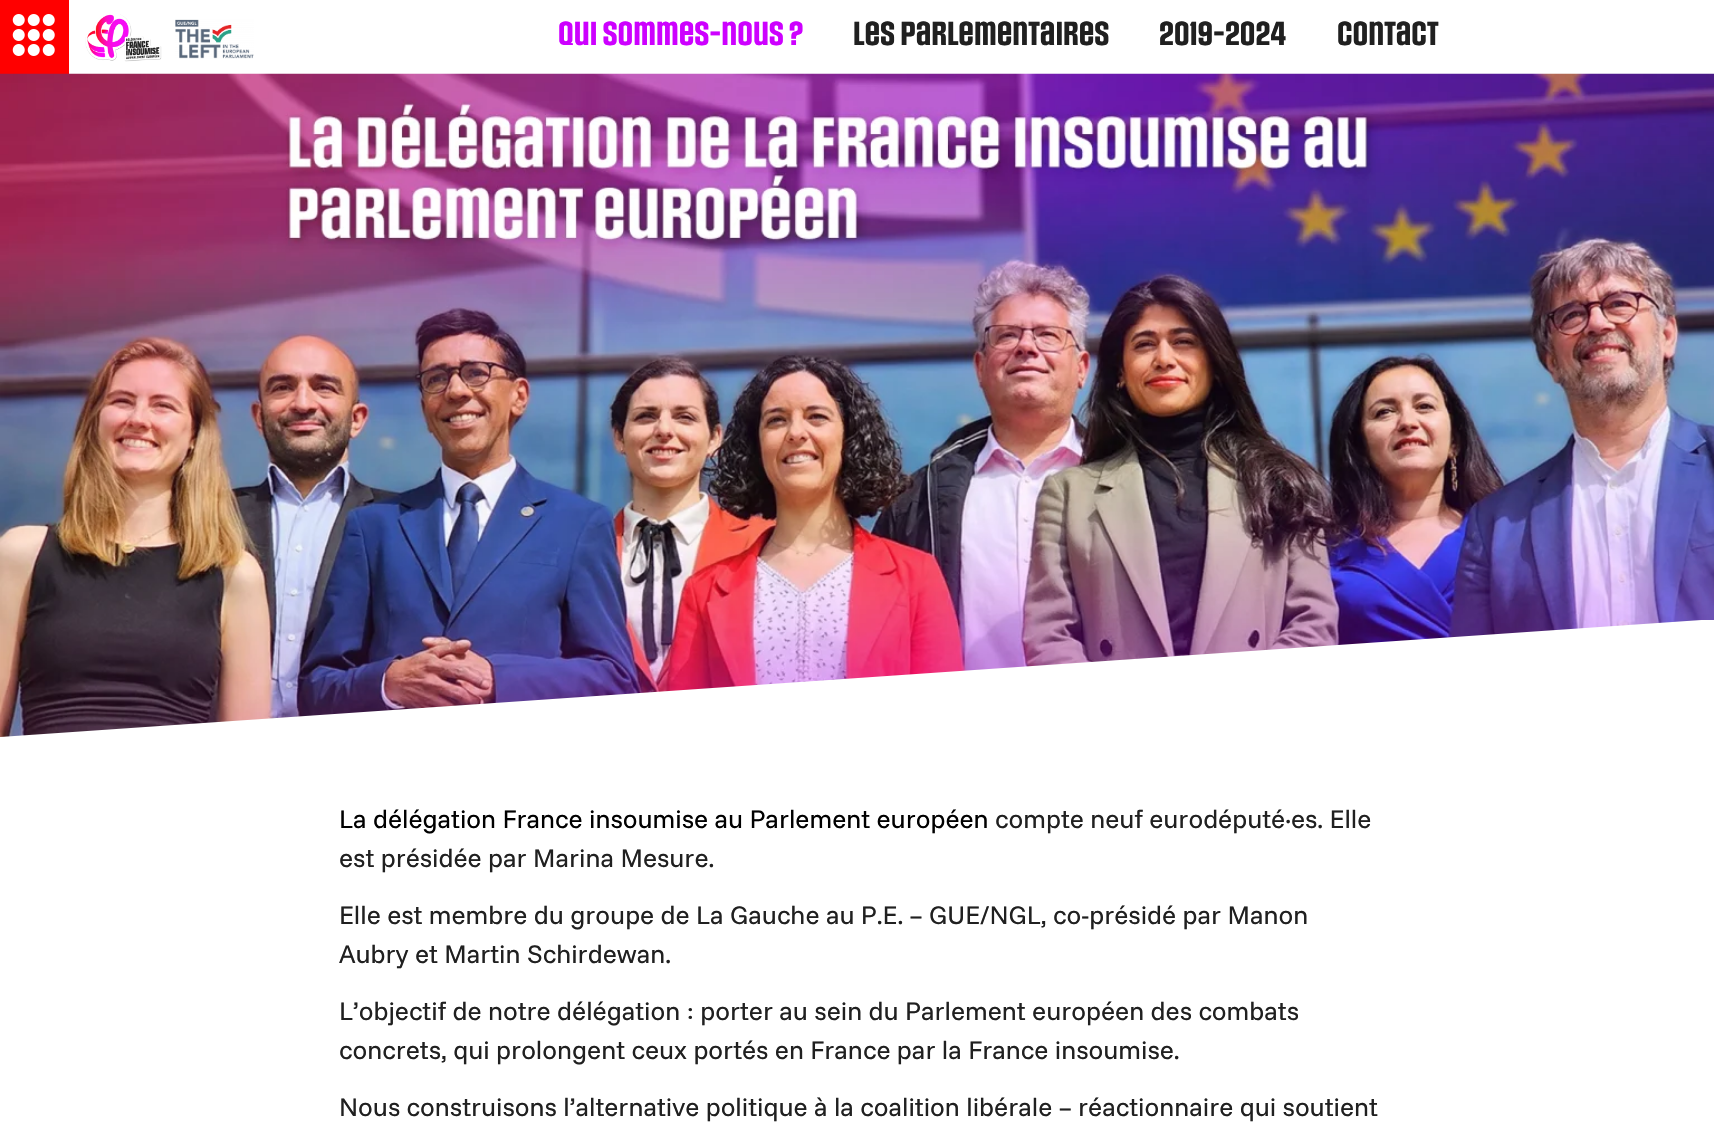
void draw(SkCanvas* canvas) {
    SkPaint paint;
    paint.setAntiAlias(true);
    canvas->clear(0xFFFFFFFF);
    paint.setColor(0xFFFF0000);
    canvas->drawRect(SkRect::MakeXYWH(0, 0, 69, 74), paint);
    canvas->drawImageRect(SkImages::DeferredFromEncodedData(SkData::MakeFromFileName("img1.png")), SkRect::MakeXYWH(12, 14, 43, 42), SkSamplingOptions());
    canvas->drawImageRect(SkImages::DeferredFromEncodedData(SkData::MakeFromFileName("img2.png")), SkRect::MakeXYWH(85, 14, 77, 48), SkSamplingOptions());
    canvas->drawImageRect(SkImages::DeferredFromEncodedData(SkData::MakeFromFileName("img3.png")), SkRect::MakeXYWH(175, 19, 79, 40), SkSamplingOptions());
    SkFont font1(fontMgr->matchFamilyStyle("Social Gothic", SkFontStyle::Bold()), 28);
    font1.setSubpixel(true);
    paint.setColor(0xFFCD00FF);
    canvas->drawString("Qui sommes-nous ?", 558, 45, font1, paint);
    paint.setColor(0xFF202020);
    canvas->drawString("Les parlementaires", 853, 45, font1, paint);
    canvas->drawString("2019-2024", 1159, 45, font1, paint);
    canvas->drawString("Contact", 1337, 45, font1, paint);
    canvas->drawImageRect(SkImages::DeferredFromEncodedData(SkData::MakeFromFileName("img4.png")), SkRect::MakeXYWH(0, 73, 1714, 664), SkSamplingOptions());
    canvas->save();
    canvas->clipRect(SkRect::MakeXYWH(0, 620, 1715, 125));
    paint.setColor(0xFFFFFFFF);
    canvas->drawPath(SkPathBuilder().moveTo(-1, 737).lineTo(-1, 744).lineTo(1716, 744).lineTo(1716, 619).close().detach(), paint);
    canvas->restore();
    SkFont font2(fontMgr->matchFamilyStyle("Funnel Sans", SkFontStyle::Normal()), 26);
    font2.setSubpixel(true);
    paint.setColor(0xFF000000);
    canvas->drawString("La délégation France insoumise au Parlement européen", 339, 828, font2, paint);
    paint.setColor(0xFF202020);
    canvas->drawString("compte neuf eurodéputé·es. Elle", 995, 828, font2, paint);
    canvas->drawString("est présidée par Marina Mesure.", 339, 867, font2, paint);
    canvas->drawString("Elle est membre du groupe de La Gauche au P.E. – GUE/NGL, co-présidé par Manon", 339, 924, font2, paint);
    canvas->drawString("Aubry et Martin Schirdewan.", 339, 963, font2, paint);
    canvas->drawString("L’objectif de notre délégation : porter au sein du Parlement européen des combats", 339, 1020, font2, paint);
    canvas->drawString("concrets, qui prolongent ceux portés en France par la France insoumise.", 339, 1059, font2, paint);
    canvas->drawString("Nous construisons l’alternative politique à la coalition libérale – réactionnaire qui soutient", 339, 1116, font2, paint);
}
